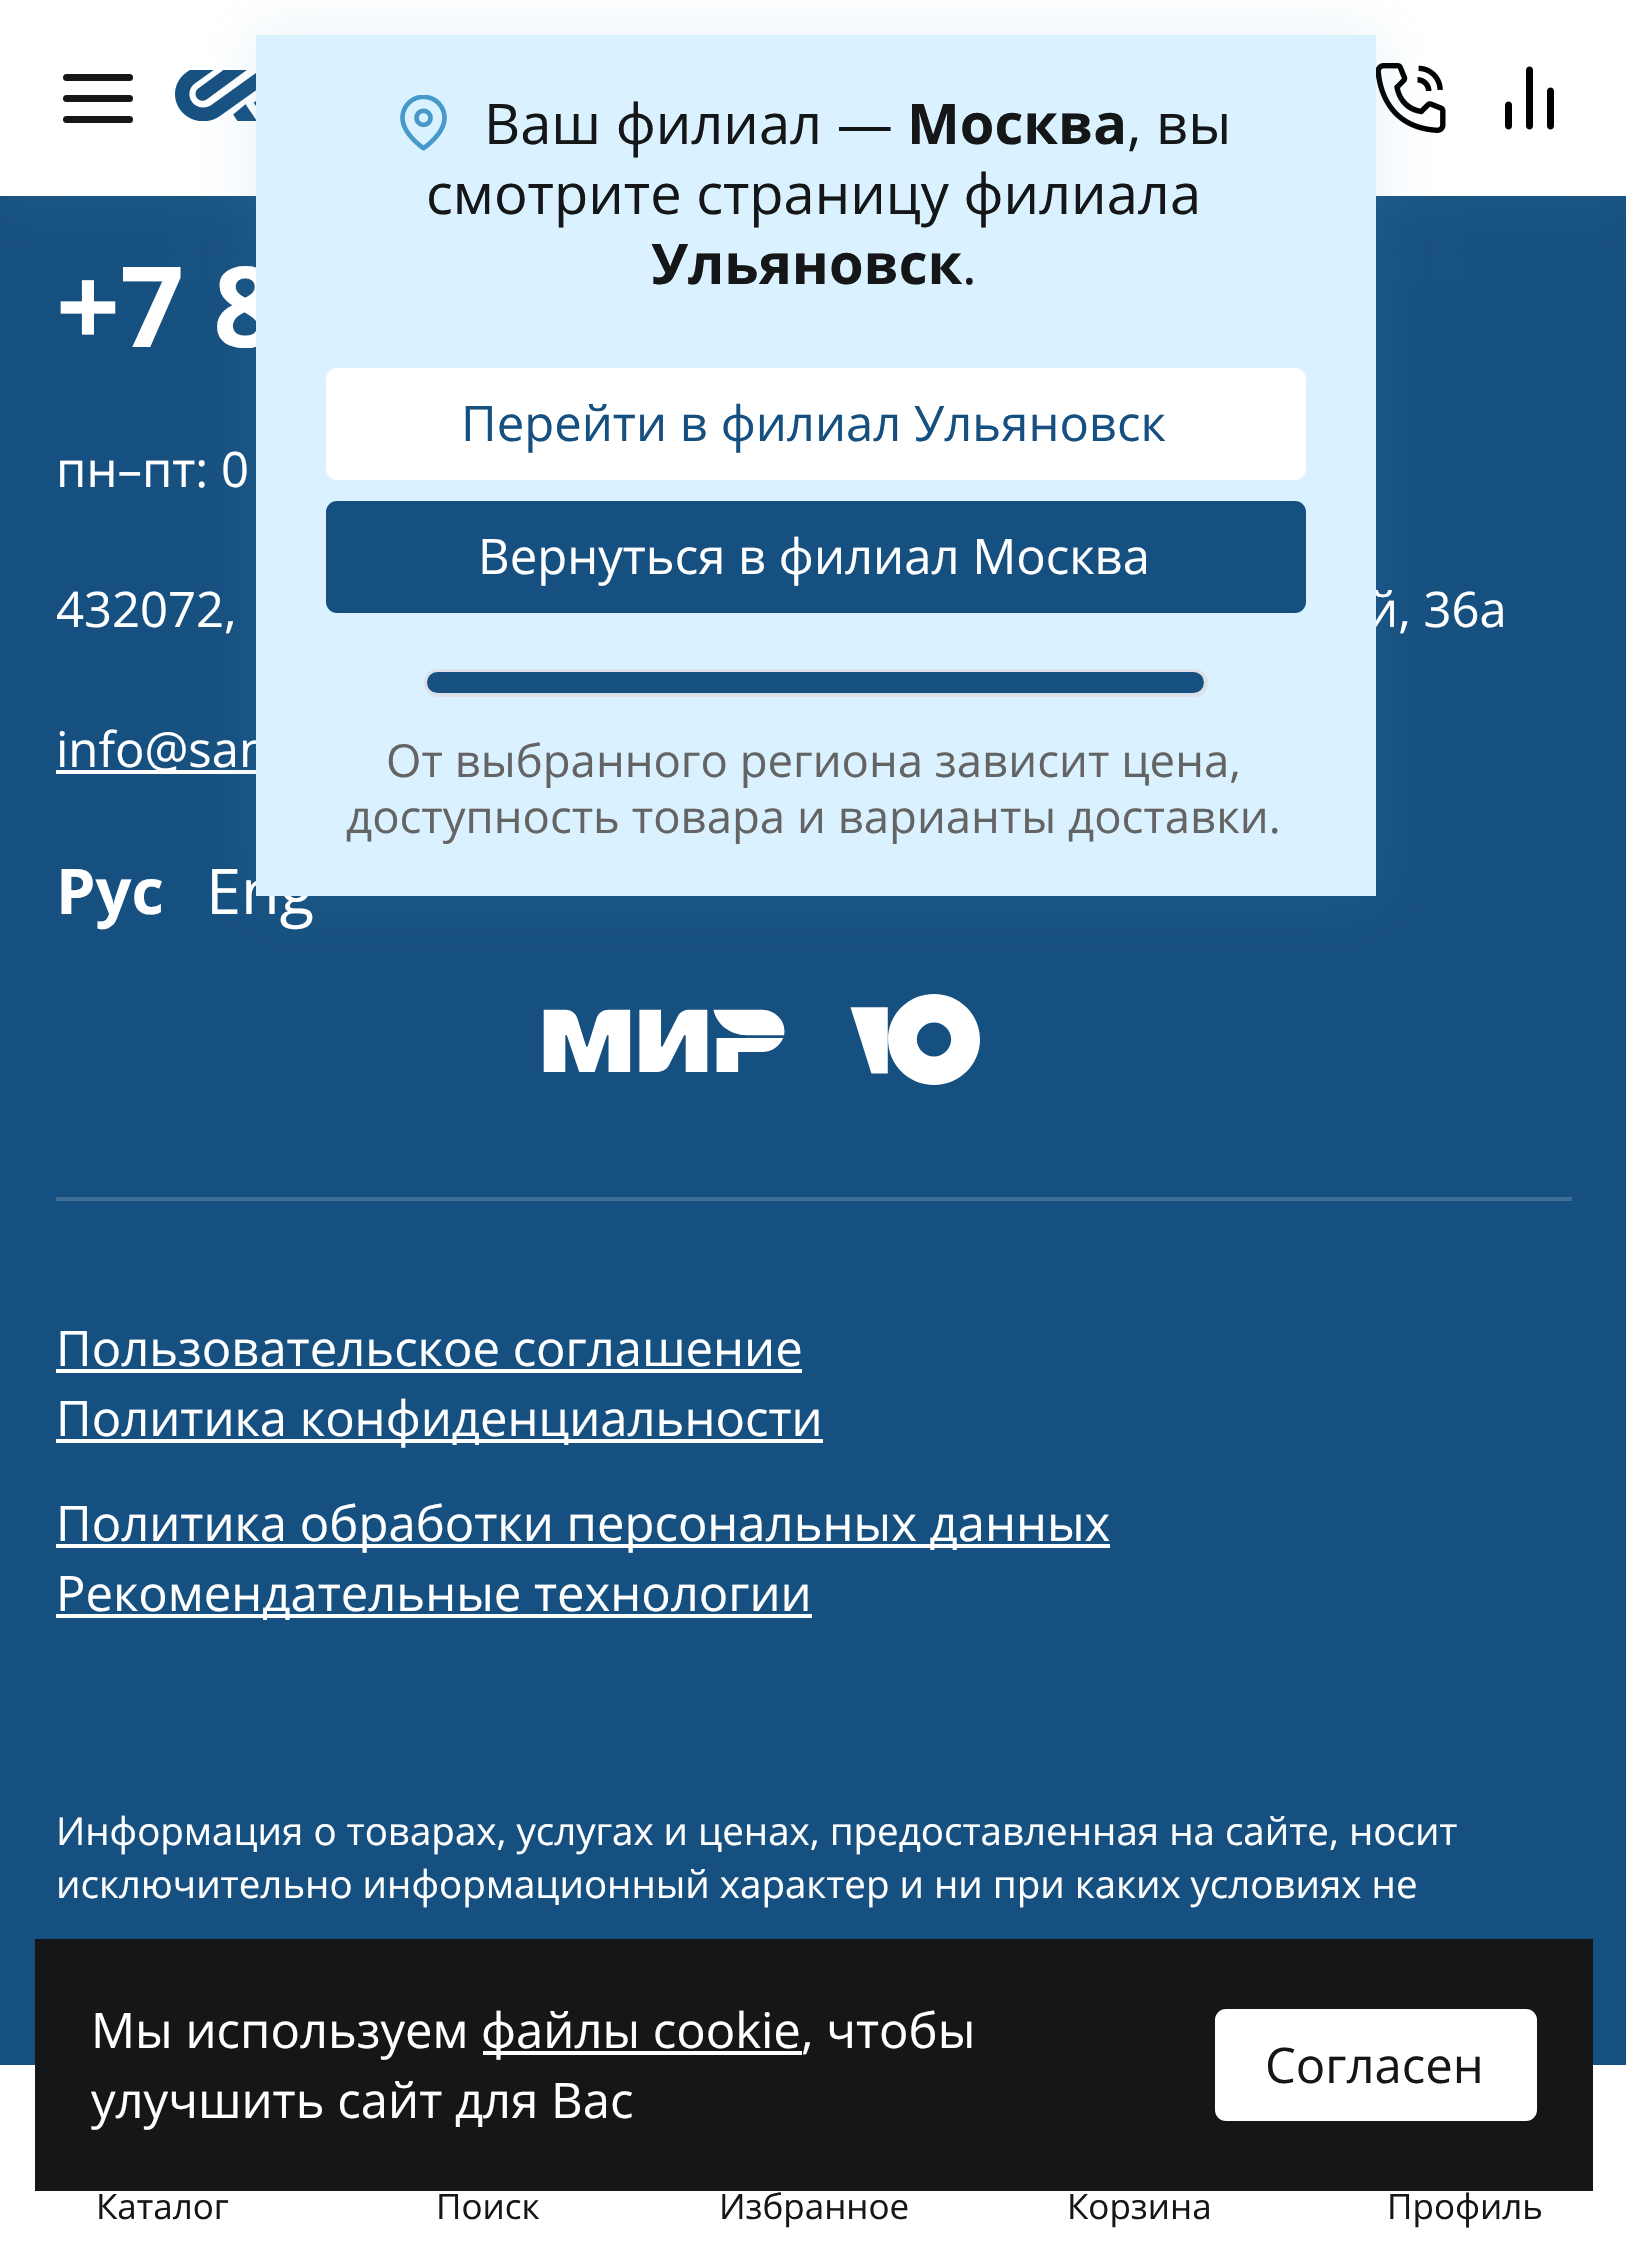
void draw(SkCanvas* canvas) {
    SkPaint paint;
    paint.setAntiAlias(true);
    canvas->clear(0xFFFFFFFF);
    paint.setColor(0xFF165080);
    canvas->drawRect(SkRect::MakeXYWH(0, 196, 1626, 1869), paint);
    paint.setColor(0x244699C8);
    paint.setMaskFilter(SkMaskFilter::MakeBlur(kNormal_SkBlurStyle, 29));
    canvas->drawRect(SkRect::MakeXYWH(0, 0, 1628, 196), paint);
    paint.setMaskFilter(nullptr);
    paint.setColor(0xFFFFFFFF);
    canvas->drawRect(SkRect::MakeXYWH(0, 0, 1626, 196), paint);
    paint.setColor(0xFF151617);
    canvas->drawRoundRect(SkRect::MakeXYWH(63, 95, 70, 7), 3.5f, 3.5f, paint);
    canvas->drawRoundRect(SkRect::MakeXYWH(63, 74, 70, 7), 3.5f, 3.5f, paint);
    canvas->drawRoundRect(SkRect::MakeXYWH(63, 116, 70, 7), 3.5f, 3.5f, paint);
    canvas->drawImageRect(SkImages::DeferredFromEncodedData(SkData::MakeFromFileName("img1.png")), SkRect::MakeXYWH(175, 70, 81, 51), SkSamplingOptions());
    canvas->drawImageRect(SkImages::DeferredFromEncodedData(SkData::MakeFromFileName("img2.png")), SkRect::MakeXYWH(1376, 63, 70, 70), SkSamplingOptions());
    canvas->drawImageRect(SkImages::DeferredFromEncodedData(SkData::MakeFromFileName("img3.png")), SkRect::MakeXYWH(1505, 66, 49, 64), SkSamplingOptions());
    paint.setColor(0xFFFFFFFF);
    canvas->drawRect(SkRect::MakeXYWH(56, 770, 200, 4), paint);
    paint.setColor(0x244699C8);
    paint.setMaskFilter(SkMaskFilter::MakeBlur(kNormal_SkBlurStyle, 29));
    canvas->drawRect(SkRect::MakeXYWH(256, 35, 1120, 861), paint);
    paint.setMaskFilter(nullptr);
    SkFont font1(fontMgr->matchFamilyStyle("Open Sans", SkFontStyle::Bold()), 112);
    font1.setSubpixel(true);
    paint.setColor(0xFFFFFFFF);
    canvas->drawString("+7 8", 56, 347, font1, paint);
    SkFont font2(fontMgr->matchFamilyStyle("Open Sans", SkFontStyle::Normal()), 49);
    font2.setSubpixel(true);
    canvas->drawString("й, 36а", 1367, 627, font2, paint);
    canvas->drawString("info@san", 56, 767, font2, paint);
    SkFont font3(fontMgr->matchFamilyStyle("Open Sans", SkFontStyle::Normal()), 63);
    font3.setSubpixel(true);
    canvas->drawString("Eng", 206, 914, font3, paint);
    paint.setColor(0xFFDAF2FF);
    canvas->drawRect(SkRect::MakeXYWH(256, 35, 1120, 861), paint);
    canvas->drawImageRect(SkImages::DeferredFromEncodedData(SkData::MakeFromFileName("img4.png")), SkRect::MakeXYWH(400, 95, 47, 56), SkSamplingOptions());
    SkFont font4(fontMgr->matchFamilyStyle("Open Sans", SkFontStyle::Normal()), 56);
    font4.setSubpixel(true);
    paint.setColor(0xFF151617);
    canvas->drawString("Ваш филиал —", 484, 144, font4, paint);
    SkFont font5(fontMgr->matchFamilyStyle("Open Sans", SkFontStyle::Bold()), 56);
    font5.setSubpixel(true);
    canvas->drawString("Москва", 907, 144, font5, paint);
    canvas->drawString(", вы", 1127, 144, font4, paint);
    canvas->drawString("смотрите страницу филиала", 426, 214, font4, paint);
    canvas->drawString("Ульяновск", 651, 284, font5, paint);
    canvas->drawString(".", 962, 284, font4, paint);
    paint.setColor(0xFFFFFFFF);
    canvas->drawRoundRect(SkRect::MakeXYWH(328, 370, 976, 108), 9, 9, paint);
    paint.setStyle(SkPaint::kStroke_Style);
    paint.setStrokeWidth(4);
    canvas->drawRoundRect(SkRect::MakeXYWH(328, 370, 976, 108), 9, 9, paint);
    paint.setStyle(SkPaint::kFill_Style);
    paint.setColor(0xFF165080);
    canvas->drawString("Перейти в филиал Ульяновск", 461, 441, font2, paint);
    canvas->drawRoundRect(SkRect::MakeXYWH(328, 503, 976, 108), 9, 9, paint);
    paint.setStyle(SkPaint::kStroke_Style);
    canvas->drawRoundRect(SkRect::MakeXYWH(328, 503, 976, 108), 9, 9, paint);
    paint.setStyle(SkPaint::kFill_Style);
    paint.setColor(0xFFFFFFFF);
    canvas->drawString("Вернуться в филиал Москва", 478, 574, font2, paint);
    canvas->drawRoundRect(SkRect::MakeXYWH(426, 671, 780, 24), 12, 12, paint);
    paint.setStyle(SkPaint::kStroke_Style);
    paint.setColor(0xFFDBE1E7);
    canvas->drawRoundRect(SkRect::MakeXYWH(426, 671, 780, 24), 12, 12, paint);
    paint.setStyle(SkPaint::kFill_Style);
    paint.setColor(0xFF165080);
    canvas->drawRoundRect(SkRect::MakeXYWH(427, 672, 777, 21), 10.5f, 10.5f, paint);
    SkFont font6(fontMgr->matchFamilyStyle("Open Sans", SkFontStyle::Normal()), 45.5f);
    font6.setSubpixel(true);
    paint.setColor(0xFF646464);
    canvas->drawString("От выбранного региона зависит цена,", 386, 777, font6, paint);
    canvas->drawString("доступность товара и варианты доставки.", 346, 833, font6, paint);
    paint.setColor(0xFFFFFFFF);
    canvas->drawString("пн–пт: 0", 56, 487, font2, paint);
    canvas->drawString("432072,", 56, 627, font2, paint);
    SkFont font7(fontMgr->matchFamilyStyle("Open Sans", SkFontStyle::Bold()), 63);
    font7.setSubpixel(true);
    canvas->drawString("Рус", 56, 914, font7, paint);
    canvas->drawImageRect(SkImages::DeferredFromEncodedData(SkData::MakeFromFileName("img5.png")), SkRect::MakeXYWH(543, 994, 437, 91), SkSamplingOptions());
    paint.setColor(0xFF3F6D93);
    canvas->drawRect(SkRect::MakeXYWH(56, 1197, 1516, 4), paint);
    paint.setColor(0xFFFFFFFF);
    canvas->drawString("Пользовательское соглашение", 56, 1366, font2, paint);
    canvas->drawRect(SkRect::MakeXYWH(56, 1369, 746, 4), paint);
    canvas->drawRect(SkRect::MakeXYWH(56, 1439, 767, 4), paint);
    canvas->drawString("Политика конфиденциальности", 56, 1436, font2, paint);
    canvas->drawRect(SkRect::MakeXYWH(56, 1544, 1054, 4), paint);
    canvas->drawString("Политика обработки персональных данных", 56, 1541, font2, paint);
    canvas->drawRect(SkRect::MakeXYWH(56, 1614, 756, 4), paint);
    canvas->drawString("Рекомендательные технологии", 56, 1611, font2, paint);
    SkFont font8(fontMgr->matchFamilyStyle("Open Sans", SkFontStyle::Normal()), 38.5f);
    font8.setSubpixel(true);
    canvas->drawString("Информация о товарах, услугах и ценах, предоставленная на сайте, носит", 56, 1845, font8, paint);
    canvas->drawString("исключительно информационный характер и ни при каких условиях не", 56, 1898, font8, paint);
    SkFont font9(fontMgr->matchFamilyStyle("Open Sans", SkFontStyle::Normal()), 35);
    font9.setSubpixel(true);
    paint.setColor(0xFF151617);
    canvas->drawString("Каталог", 96, 2219, font9, paint);
    canvas->drawString("Поиск", 436, 2219, font9, paint);
    canvas->drawString("Избранное", 719, 2219, font9, paint);
    canvas->drawString("Корзина", 1067, 2219, font9, paint);
    canvas->drawString("Профиль", 1387, 2219, font9, paint);
    canvas->drawRect(SkRect::MakeXYWH(35, 1939, 1558, 252), paint);
    paint.setColor(0xFFFFFFFF);
    canvas->drawString("Мы используем", 91, 2048, font2, paint);
    canvas->drawRect(SkRect::MakeXYWH(483, 2051, 319, 4), paint);
    canvas->drawString("файлы cookie, чтобы", 481, 2048, font2, paint);
    canvas->drawString("улучшить сайт для Вас", 91, 2118, font2, paint);
    canvas->drawRoundRect(SkRect::MakeXYWH(1217, 2011, 318, 108), 9, 9, paint);
    paint.setStyle(SkPaint::kStroke_Style);
    canvas->drawRoundRect(SkRect::MakeXYWH(1217, 2011, 318, 108), 9, 9, paint);
    paint.setStyle(SkPaint::kFill_Style);
    paint.setColor(0xFF151617);
    canvas->drawString("Согласен", 1265, 2083, font2, paint);
}
